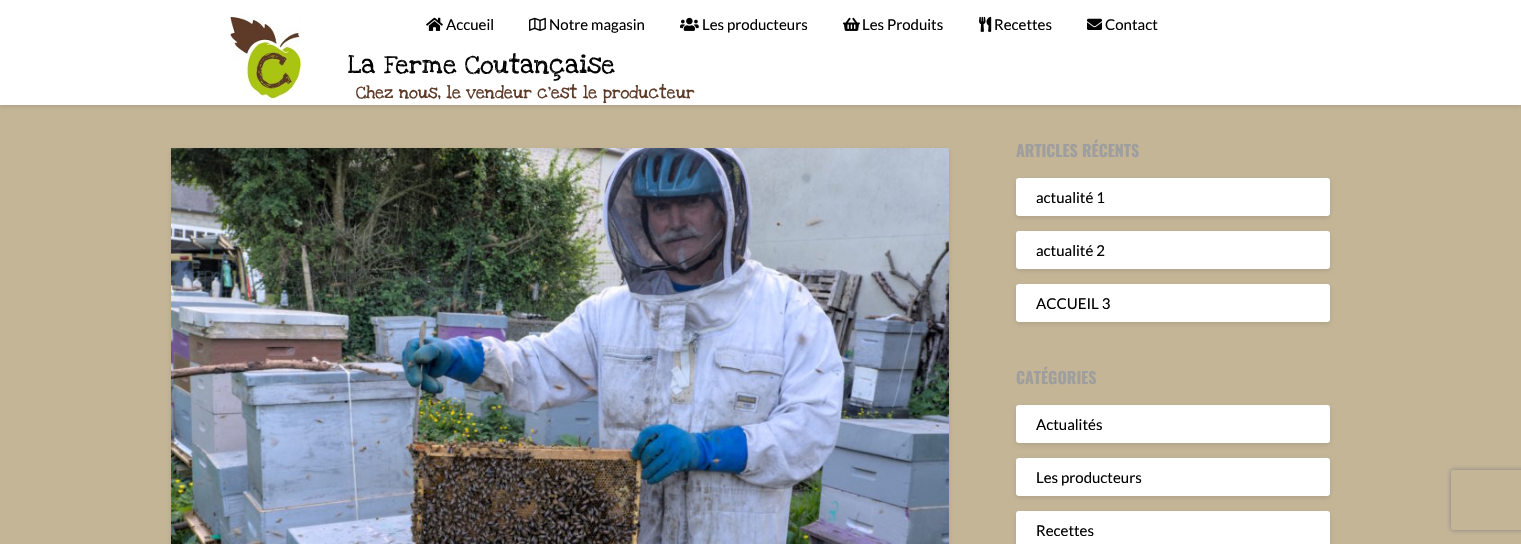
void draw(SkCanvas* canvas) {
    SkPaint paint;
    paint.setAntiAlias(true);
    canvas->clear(0xFFC4B597);
    paint.setColor(0x1A000000);
    paint.setMaskFilter(SkMaskFilter::MakeBlur(kNormal_SkBlurStyle, 2));
    canvas->drawRect(SkRect::MakeXYWH(0, 2, 1521, 105), paint);
    paint.setMaskFilter(nullptr);
    paint.setColor(0xFFFFFFFF);
    canvas->drawRect(SkRect::MakeXYWH(0, 0, 1521, 105), paint);
    canvas->drawImageRect(SkImages::DeferredFromEncodedData(SkData::MakeFromFileName("img1.png")), SkRect::MakeXYWH(230, 12, 71, 88), SkSamplingOptions());
    canvas->drawImageRect(SkImages::DeferredFromEncodedData(SkData::MakeFromFileName("img2.png")), SkRect::MakeXYWH(426, 17, 17, 14), SkSamplingOptions());
    SkFont font1(fontMgr->matchFamilyStyle("Lato", SkFontStyle::Normal()), 15);
    font1.setSubpixel(true);
    paint.setColor(0xFF000000);
    canvas->drawString("Accueil", 446, 30, font1, paint);
    canvas->drawImageRect(SkImages::DeferredFromEncodedData(SkData::MakeFromFileName("img3.png")), SkRect::MakeXYWH(529, 17, 17, 14), SkSamplingOptions());
    canvas->drawString("Notre magasin", 549, 30, font1, paint);
    canvas->drawImageRect(SkImages::DeferredFromEncodedData(SkData::MakeFromFileName("img4.png")), SkRect::MakeXYWH(680, 17, 19, 14), SkSamplingOptions());
    canvas->drawString("Les producteurs", 702, 30, font1, paint);
    canvas->drawImageRect(SkImages::DeferredFromEncodedData(SkData::MakeFromFileName("img5.png")), SkRect::MakeXYWH(843, 17, 17, 14), SkSamplingOptions());
    canvas->drawString("Les Produits", 862, 30, font1, paint);
    canvas->drawImageRect(SkImages::DeferredFromEncodedData(SkData::MakeFromFileName("img6.png")), SkRect::MakeXYWH(979, 16, 13, 16), SkSamplingOptions());
    canvas->drawString("Recettes", 994, 30, font1, paint);
    canvas->drawImageRect(SkImages::DeferredFromEncodedData(SkData::MakeFromFileName("img7.png")), SkRect::MakeXYWH(1087, 18, 15, 12), SkSamplingOptions());
    canvas->drawString("Contact", 1105, 30, font1, paint);
    SkFont font2(fontMgr->matchFamilyStyle("Love Ya Like A Sister", SkFontStyle::Normal()), 19.25f);
    font2.setSubpixel(true);
    canvas->drawString("La Ferme Coutançaise", 348, 73, font2, paint);
    SkFont font3(fontMgr->matchFamilyStyle("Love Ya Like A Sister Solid", SkFontStyle::Normal()), 12.8f);
    font3.setSubpixel(true);
    paint.setColor(0xFF5D3B28);
    canvas->drawString("Chez nous, le vendeur c'est le producteur", 356, 98, font3, paint);
    paint.setColor(0x1A000000);
    paint.setMaskFilter(SkMaskFilter::MakeBlur(kNormal_SkBlurStyle, 2));
    canvas->drawRoundRect(SkRect::MakeXYWH(171, 150, 778, 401), 1, 1, paint);
    paint.setMaskFilter(nullptr);
    canvas->drawImageRect(SkImages::DeferredFromEncodedData(SkData::MakeFromFileName("img8.png")), SkRect::MakeXYWH(171, 148, 778, 396), SkSamplingOptions());
    SkFont font4(fontMgr->matchFamilyStyle("Oswald", SkFontStyle::Bold()), 16);
    font4.setSubpixel(true);
    paint.setColor(0xFF9E9E9E);
    canvas->drawString("ARTICLES RÉCENTS", 1016, 157, font4, paint);
    paint.setColor(0x1A000000);
    paint.setMaskFilter(SkMaskFilter::MakeBlur(kNormal_SkBlurStyle, 2));
    canvas->drawRoundRect(SkRect::MakeXYWH(1016, 180, 314, 38), 3, 3, paint);
    paint.setMaskFilter(nullptr);
    paint.setColor(0xFFFFFFFF);
    canvas->drawRoundRect(SkRect::MakeXYWH(1016, 178, 314, 38), 3, 3, paint);
    paint.setColor(0xFF000000);
    canvas->drawString("actualité 1", 1036, 203, font1, paint);
    paint.setColor(0x1A000000);
    paint.setMaskFilter(SkMaskFilter::MakeBlur(kNormal_SkBlurStyle, 2));
    canvas->drawRoundRect(SkRect::MakeXYWH(1016, 233, 314, 38), 3, 3, paint);
    paint.setMaskFilter(nullptr);
    paint.setColor(0xFFFFFFFF);
    canvas->drawRoundRect(SkRect::MakeXYWH(1016, 231, 314, 38), 3, 3, paint);
    paint.setColor(0xFF000000);
    canvas->drawString("actualité 2", 1036, 256, font1, paint);
    paint.setColor(0x1A000000);
    paint.setMaskFilter(SkMaskFilter::MakeBlur(kNormal_SkBlurStyle, 2));
    canvas->drawRoundRect(SkRect::MakeXYWH(1016, 286, 314, 38), 3, 3, paint);
    paint.setMaskFilter(nullptr);
    paint.setColor(0xFFFFFFFF);
    canvas->drawRoundRect(SkRect::MakeXYWH(1016, 284, 314, 38), 3, 3, paint);
    paint.setColor(0xFF000000);
    canvas->drawString("ACCUEIL 3", 1036, 309, font1, paint);
    paint.setColor(0xFF9E9E9E);
    canvas->drawString("CATÉGORIES", 1016, 384, font4, paint);
    paint.setColor(0x1A000000);
    paint.setMaskFilter(SkMaskFilter::MakeBlur(kNormal_SkBlurStyle, 2));
    canvas->drawRoundRect(SkRect::MakeXYWH(1016, 407, 314, 38), 3, 3, paint);
    paint.setMaskFilter(nullptr);
    paint.setColor(0xFFFFFFFF);
    canvas->drawRoundRect(SkRect::MakeXYWH(1016, 405, 314, 38), 3, 3, paint);
    paint.setColor(0xFF000000);
    canvas->drawString("Actualités", 1036, 430, font1, paint);
    paint.setColor(0x1A000000);
    paint.setMaskFilter(SkMaskFilter::MakeBlur(kNormal_SkBlurStyle, 2));
    canvas->drawRoundRect(SkRect::MakeXYWH(1016, 460, 314, 38), 3, 3, paint);
    paint.setMaskFilter(nullptr);
    paint.setColor(0xFFFFFFFF);
    canvas->drawRoundRect(SkRect::MakeXYWH(1016, 458, 314, 38), 3, 3, paint);
    paint.setColor(0xFF000000);
    canvas->drawString("Les producteurs", 1036, 483, font1, paint);
    paint.setColor(0x1A000000);
    paint.setMaskFilter(SkMaskFilter::MakeBlur(kNormal_SkBlurStyle, 2));
    canvas->drawRoundRect(SkRect::MakeXYWH(1016, 513, 314, 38), 3, 3, paint);
    paint.setMaskFilter(nullptr);
    paint.setColor(0xFFFFFFFF);
    canvas->drawRoundRect(SkRect::MakeXYWH(1016, 511, 314, 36), 3, 3, paint);
    paint.setColor(0xFF000000);
    canvas->drawString("Recettes", 1036, 536, font1, paint);
    canvas->save();
    canvas->clipPath(SkPathBuilder(SkPathFillType::kEvenOdd).moveTo(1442, 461).lineTo(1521, 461).lineTo(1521, 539).lineTo(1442, 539).close().moveTo(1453, 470).lineTo(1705, 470).cubicTo(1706, 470, 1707, 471, 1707, 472).lineTo(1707, 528).cubicTo(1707, 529, 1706, 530, 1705, 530).lineTo(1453, 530).cubicTo(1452, 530, 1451, 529, 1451, 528).lineTo(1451, 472).cubicTo(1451, 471, 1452, 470, 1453, 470).close().detach(), true);
    paint.setColor(0xFF808080);
    paint.setMaskFilter(SkMaskFilter::MakeBlur(kNormal_SkBlurStyle, 2.5f));
    canvas->drawRoundRect(SkRect::MakeXYWH(1451, 470, 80, 60), 2, 2, paint);
    paint.setMaskFilter(nullptr);
    canvas->restore();
}
